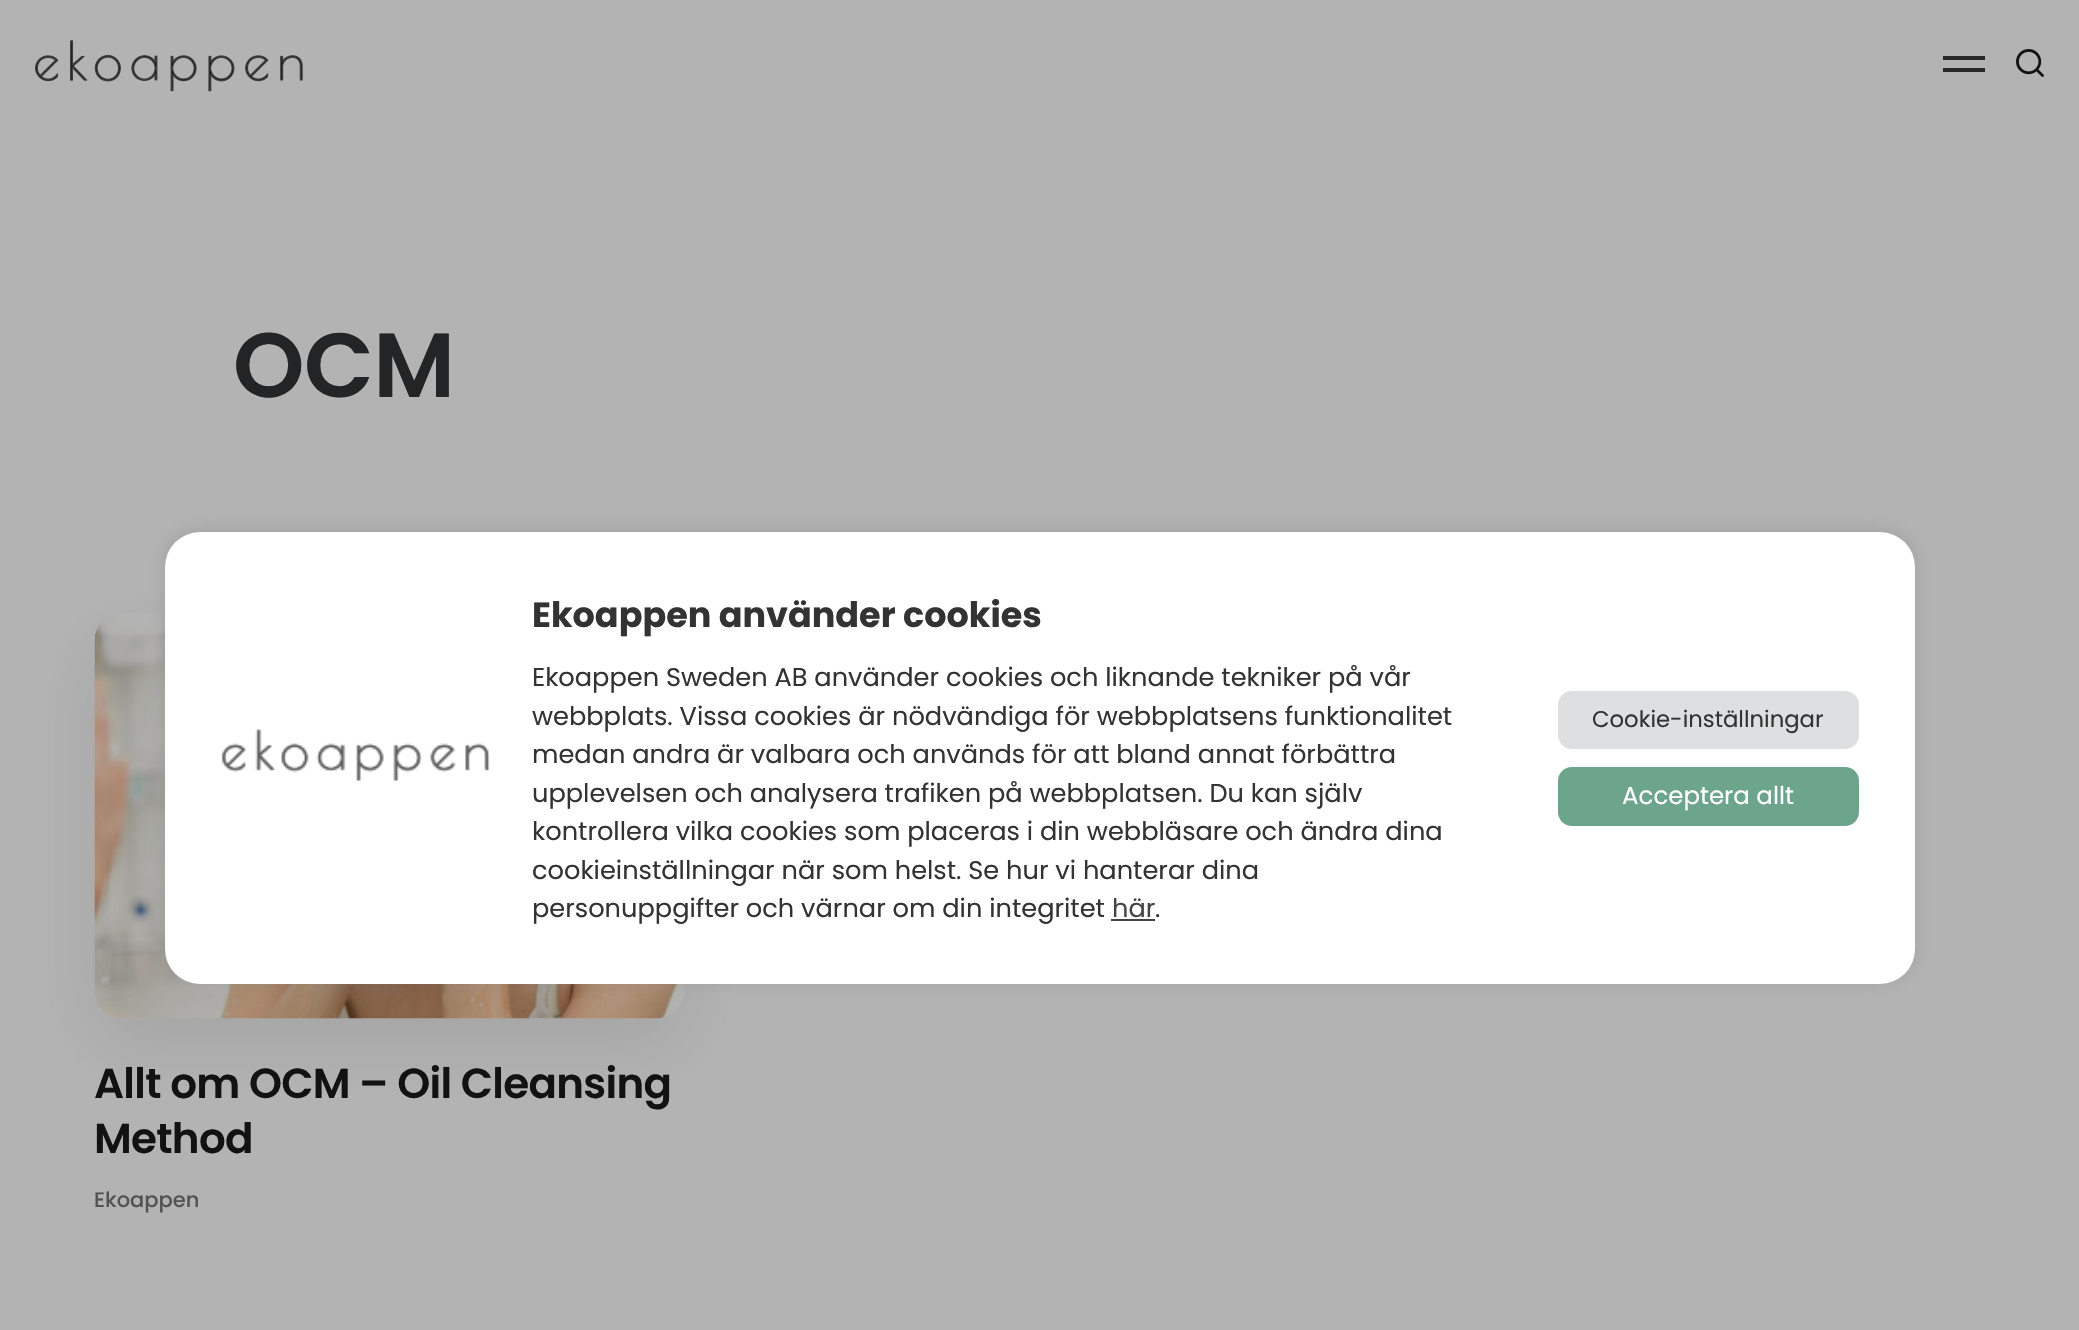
void draw(SkCanvas* canvas) {
    SkPaint paint;
    paint.setAntiAlias(true);
    auto spacedText = [&](const char* s, float x, float y, const SkFont& font, const SkPaint& ink, float letter, float word) {
        std::vector<SkGlyphID> glyphs(font.countText(s, strlen(s), SkTextEncoding::kUTF8));
        std::vector<float> xs(glyphs.size());
        font.textToGlyphs(s, strlen(s), SkTextEncoding::kUTF8, glyphs);
        font.getXPos(glyphs, xs, x);
        float extra = 0;
        for (size_t i = 0; i < glyphs.size(); i++) {
            xs[i] += extra;
            extra += letter + word * (glyphs[i] == font.unicharToGlyph(' '));
        }
        canvas->drawTextBlob(SkTextBlob::MakeFromPosHGlyphs(glyphs, xs, y, font), 0, 0, ink);
    };
    canvas->clear(0xFFB3B3B3);
    canvas->drawImageRect(SkImages::DeferredFromEncodedData(SkData::MakeFromFileName("img1.png")), SkRect::MakeXYWH(35, 40, 268, 52), SkSamplingOptions());
    paint.setColor(0xFF272727);
    canvas->drawRect(SkRect::MakeXYWH(1943, 56, 42, 4), paint);
    canvas->drawRect(SkRect::MakeXYWH(1943, 68, 42, 4), paint);
    canvas->drawImageRect(SkImages::DeferredFromEncodedData(SkData::MakeFromFileName("img2.png")), SkRect::MakeXYWH(2016, 49, 28, 28), SkSamplingOptions());
    SkFont font1(fontMgr->matchFamilyStyle("Poppins", SkFontStyle(600, SkFontStyle::kNormal_Width, SkFontStyle::kUpright_Slant)), 91);
    font1.setSubpixel(true);
    paint.setColor(0xFF222426);
    spacedText("OCM", 233, 397, font1, paint, -0.5f, 0);
    paint.setColor(0x1A212121);
    paint.setMaskFilter(SkMaskFilter::MakeBlur(kNormal_SkBlurStyle, 35));
    canvas->drawRoundRect(SkRect::MakeXYWH(95, 639, 589, 406), 28, 28, paint);
    paint.setMaskFilter(nullptr);
    canvas->drawImageRect(SkImages::DeferredFromEncodedData(SkData::MakeFromFileName("img3.png")), SkRect::MakeXYWH(94, 612, 591, 407), SkSamplingOptions());
    SkFont font2(fontMgr->matchFamilyStyle("Poppins", SkFontStyle(600, SkFontStyle::kNormal_Width, SkFontStyle::kUpright_Slant)), 42);
    font2.setSubpixel(true);
    paint.setColor(0xFF121212);
    spacedText("Allt om OCM – Oil Cleansing", 94, 1098, font2, paint, -0.7f, 0);
    spacedText("Method", 94, 1153, font2, paint, -0.7f, 0);
    SkFont font3(fontMgr->matchFamilyStyle("Poppins", SkFontStyle(500, SkFontStyle::kNormal_Width, SkFontStyle::kUpright_Slant)), 21);
    font3.setSubpixel(true);
    paint.setColor(0xFF535353);
    canvas->drawString("Ekoappen", 94, 1207, font3, paint);
    paint.setColor(0x4D787878);
    paint.setMaskFilter(SkMaskFilter::MakeBlur(kNormal_SkBlurStyle, 9));
    canvas->drawRoundRect(SkRect::MakeXYWH(165, 530, 1750, 452), 35, 35, paint);
    paint.setMaskFilter(nullptr);
    paint.setColor(0xFFFFFFFF);
    canvas->drawRoundRect(SkRect::MakeXYWH(165, 532, 1750, 452), 35, 35, paint);
    canvas->drawImageRect(SkImages::DeferredFromEncodedData(SkData::MakeFromFileName("img4.png")), SkRect::MakeXYWH(221, 729, 269, 52), SkSamplingOptions());
    SkFont font4(fontMgr->matchFamilyStyle("Poppins", SkFontStyle::Bold()), 35);
    font4.setSubpixel(true);
    paint.setColor(0xFF333333);
    canvas->drawString("Ekoappen använder cookies", 532, 627, font4, paint);
    SkFont font5(fontMgr->matchFamilyStyle("Poppins", SkFontStyle::Normal()), 25.65f);
    font5.setSubpixel(true);
    canvas->drawString("Ekoappen Sweden AB använder cookies och liknande tekniker på vår", 532, 686, font5, paint);
    canvas->drawString("webbplats. Vissa cookies är nödvändiga för webbplatsens funktionalitet", 532, 725, font5, paint);
    canvas->drawString("medan andra är valbara och används för att bland annat förbättra", 532, 763, font5, paint);
    canvas->drawString("upplevelsen och analysera trafiken på webbplatsen. Du kan själv", 532, 802, font5, paint);
    canvas->drawString("kontrollera vilka cookies som placeras i din webbläsare och ändra dina", 532, 840, font5, paint);
    canvas->drawString("cookieinställningar när som helst. Se hur vi hanterar dina", 532, 879, font5, paint);
    canvas->drawString("personuppgifter och värnar om din integritet", 532, 917, font5, paint);
    paint.setColor(0xFF444444);
    canvas->drawString("här", 1112, 917, font5, paint);
    canvas->drawRect(SkRect::MakeXYWH(1111, 919, 44, 2), paint);
    paint.setColor(0xFF333333);
    canvas->drawString(".", 1155, 917, font5, paint);
    paint.setColor(0xFFDEDFE0);
    canvas->drawRoundRect(SkRect::MakeXYWH(1558, 691, 301, 58), 14, 14, paint);
    SkFont font6(fontMgr->matchFamilyStyle("Poppins", SkFontStyle::Normal()), 22.75f);
    font6.setSubpixel(true);
    paint.setColor(0xFF333333);
    canvas->drawString("Cookie-inställningar", 1592, 727, font6, paint);
    paint.setColor(0xFF6CA48C);
    canvas->drawRoundRect(SkRect::MakeXYWH(1558, 767, 301, 59), 14, 14, paint);
    SkFont font7(fontMgr->matchFamilyStyle("Poppins", SkFontStyle::Normal()), 24.5f);
    font7.setSubpixel(true);
    paint.setColor(0xFFFFFFFF);
    canvas->drawString("Acceptera allt", 1622, 804, font7, paint);
}
